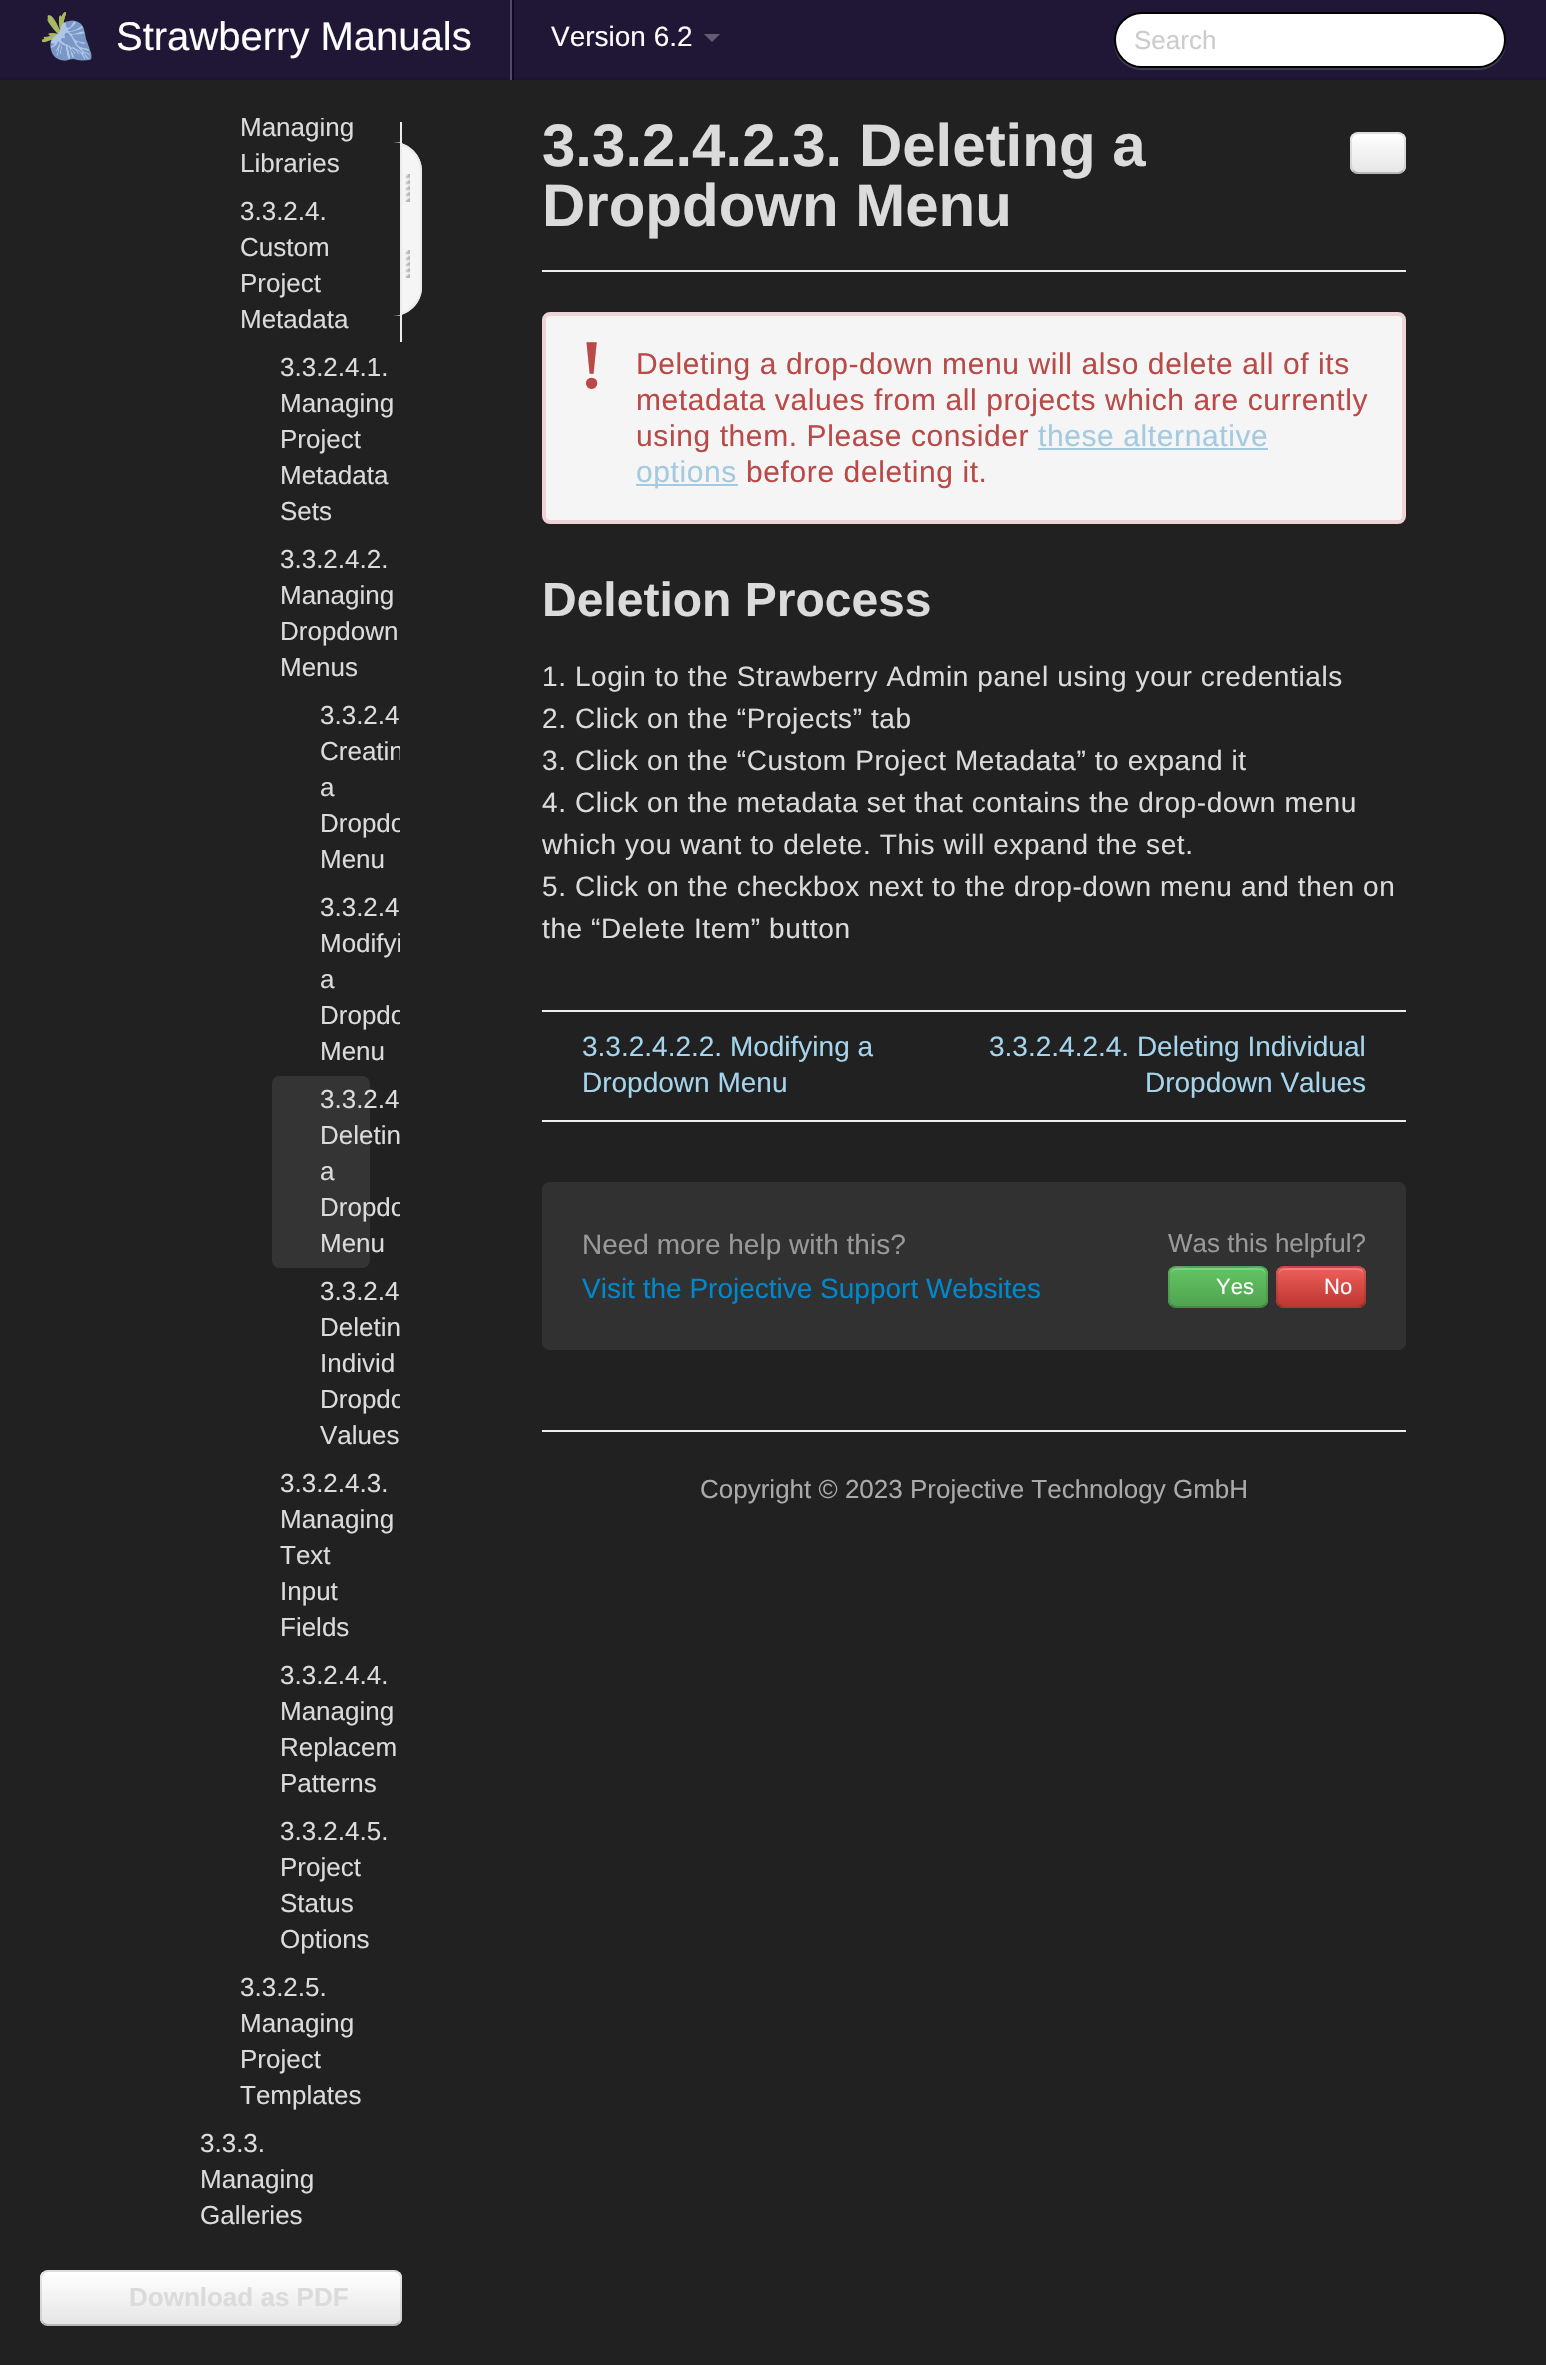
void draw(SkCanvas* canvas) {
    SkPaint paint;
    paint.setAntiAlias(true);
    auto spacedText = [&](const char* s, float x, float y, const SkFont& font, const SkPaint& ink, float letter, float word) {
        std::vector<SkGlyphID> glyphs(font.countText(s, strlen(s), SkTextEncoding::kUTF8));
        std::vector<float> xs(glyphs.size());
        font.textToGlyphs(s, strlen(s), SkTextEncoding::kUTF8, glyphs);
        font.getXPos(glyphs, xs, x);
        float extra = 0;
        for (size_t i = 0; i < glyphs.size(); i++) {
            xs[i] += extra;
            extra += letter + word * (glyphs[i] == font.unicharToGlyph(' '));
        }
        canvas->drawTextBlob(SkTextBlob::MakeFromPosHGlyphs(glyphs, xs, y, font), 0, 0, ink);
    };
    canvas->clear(0xFF212121);
    paint.setColor(0xFF201636);
    canvas->drawRect(SkRect::MakeXYWH(0, 0, 1546, 78), paint);
    paint.setColor(0xFF1D1431);
    canvas->drawRect(SkRect::MakeXYWH(0, 78, 1546, 2), paint);
    canvas->drawImageRect(SkImages::DeferredFromEncodedData(SkData::MakeFromFileName("img1.png")), SkRect::MakeXYWH(42, 12, 50, 49), SkSamplingOptions());
    SkFont font1(fontMgr->matchFamilyStyle("Liberation Sans", SkFontStyle::Normal()), 40);
    font1.setSubpixel(true);
    paint.setColor(0xFFFFFFFF);
    canvas->drawString("Strawberry Manuals", 116, 50, font1, paint);
    paint.setColor(0xFF534969);
    canvas->drawRect(SkRect::MakeXYWH(510, 0, 2, 80), paint);
    paint.setColor(0xFF100525);
    canvas->drawRect(SkRect::MakeXYWH(512, 0, 2, 80), paint);
    SkFont font2(fontMgr->matchFamilyStyle("Liberation Sans", SkFontStyle::Normal()), 28);
    font2.setSubpixel(true);
    paint.setColor(0xFFFFFFFF);
    canvas->drawString("Version 6.2", 551, 46, font2, paint);
    paint.setColor(0xFF635C72);
    canvas->drawPath(SkPathBuilder().moveTo(704, 34).lineTo(720, 34).lineTo(712, 42).close().detach(), paint);
    paint.setColor(0xFF413954);
    canvas->drawPath(SkPathBuilder().moveTo(1114, 41).cubicTo(1113, 57, 1126, 70, 1142, 70).lineTo(1478, 70).cubicTo(1494, 70, 1507, 57, 1506, 41).cubicTo(1505, 56, 1493, 68, 1478, 68).lineTo(1142, 68).cubicTo(1127, 68, 1115, 56, 1114, 41).close().detach(), paint);
    paint.setColor(0xFFFFFFFF);
    canvas->drawRoundRect(SkRect::MakeXYWH(1115, 13, 390, 54), 27, 27, paint);
    paint.setStyle(SkPaint::kStroke_Style);
    paint.setStrokeWidth(2);
    paint.setColor(0xFF000101);
    canvas->drawRoundRect(SkRect::MakeXYWH(1115, 13, 390, 54), 27, 27, paint);
    SkFont font3(fontMgr->matchFamilyStyle("Liberation Sans", SkFontStyle::Normal()), 26);
    font3.setSubpixel(true);
    paint.setStyle(SkPaint::kFill_Style);
    paint.setColor(0xFFCCCCCC);
    canvas->drawString("Search", 1134, 49, font3, paint);
    canvas->save();
    canvas->clipPath(SkPathBuilder().moveTo(48, 118).lineTo(394, 118).cubicTo(397.5f, 118, 400, 120.5f, 400, 124).lineTo(400, 2222).cubicTo(400, 2225.5f, 397.5f, 2228, 394, 2228).lineTo(48, 2228).cubicTo(44.5f, 2228, 42, 2225.5f, 42, 2222).lineTo(42, 124).cubicTo(42, 120.5f, 44.5f, 118, 48, 118).close().detach(), true);
    paint.setColor(0xFFDBDBDB);
    canvas->drawString("Managing", 240, 136, font3, paint);
    canvas->restore();
    canvas->drawString("Libraries", 240, 172, font3, paint);
    canvas->drawString("3.3.2.4.", 240, 220, font3, paint);
    canvas->drawString("Custom", 240, 256, font3, paint);
    canvas->drawString("Project", 240, 292, font3, paint);
    canvas->drawString("Metadata", 240, 328, font3, paint);
    canvas->drawString("3.3.2.4.1.", 280, 376, font3, paint);
    canvas->drawString("Managing", 280, 412, font3, paint);
    canvas->drawString("Project", 280, 448, font3, paint);
    canvas->drawString("Metadata", 280, 484, font3, paint);
    canvas->drawString("Sets", 280, 520, font3, paint);
    canvas->drawString("3.3.2.4.2.", 280, 568, font3, paint);
    canvas->drawString("Managing", 280, 604, font3, paint);
    canvas->drawString("Dropdown", 280, 640, font3, paint);
    canvas->drawString("Menus", 280, 676, font3, paint);
    canvas->drawString("3.3.2.4", 320, 724, font3, paint);
    canvas->save();
    canvas->clipPath(SkPathBuilder().moveTo(48, 118).lineTo(394, 118).cubicTo(397.5f, 118, 400, 120.5f, 400, 124).lineTo(400, 2222).cubicTo(400, 2225.5f, 397.5f, 2228, 394, 2228).lineTo(48, 2228).cubicTo(44.5f, 2228, 42, 2225.5f, 42, 2222).lineTo(42, 124).cubicTo(42, 120.5f, 44.5f, 118, 48, 118).close().detach(), true);
    canvas->drawString("Creatin", 320, 760, font3, paint);
    canvas->restore();
    canvas->drawString("a", 320, 796, font3, paint);
    canvas->save();
    canvas->clipPath(SkPathBuilder().moveTo(48, 118).lineTo(394, 118).cubicTo(397.5f, 118, 400, 120.5f, 400, 124).lineTo(400, 2222).cubicTo(400, 2225.5f, 397.5f, 2228, 394, 2228).lineTo(48, 2228).cubicTo(44.5f, 2228, 42, 2225.5f, 42, 2222).lineTo(42, 124).cubicTo(42, 120.5f, 44.5f, 118, 48, 118).close().detach(), true);
    canvas->drawString("Dropdo", 320, 832, font3, paint);
    canvas->restore();
    canvas->drawString("Menu", 320, 868, font3, paint);
    canvas->drawString("3.3.2.4", 320, 916, font3, paint);
    canvas->save();
    canvas->clipPath(SkPathBuilder().moveTo(48, 118).lineTo(394, 118).cubicTo(397.5f, 118, 400, 120.5f, 400, 124).lineTo(400, 2222).cubicTo(400, 2225.5f, 397.5f, 2228, 394, 2228).lineTo(48, 2228).cubicTo(44.5f, 2228, 42, 2225.5f, 42, 2222).lineTo(42, 124).cubicTo(42, 120.5f, 44.5f, 118, 48, 118).close().detach(), true);
    canvas->drawString("Modifyi", 320, 952, font3, paint);
    canvas->restore();
    canvas->drawString("a", 320, 988, font3, paint);
    canvas->save();
    canvas->clipPath(SkPathBuilder().moveTo(48, 118).lineTo(394, 118).cubicTo(397.5f, 118, 400, 120.5f, 400, 124).lineTo(400, 2222).cubicTo(400, 2225.5f, 397.5f, 2228, 394, 2228).lineTo(48, 2228).cubicTo(44.5f, 2228, 42, 2225.5f, 42, 2222).lineTo(42, 124).cubicTo(42, 120.5f, 44.5f, 118, 48, 118).close().detach(), true);
    canvas->drawString("Dropdo", 320, 1024, font3, paint);
    canvas->restore();
    canvas->drawString("Menu", 320, 1060, font3, paint);
    paint.setColor(0xFF343434);
    canvas->drawRoundRect(SkRect::MakeXYWH(272, 1076, 98, 192), 8, 8, paint);
    paint.setColor(0xFFDBDBDB);
    canvas->drawString("3.3.2.4", 320, 1108, font3, paint);
    canvas->drawString("Deletin", 320, 1144, font3, paint);
    canvas->drawString("a", 320, 1180, font3, paint);
    canvas->save();
    canvas->clipPath(SkPathBuilder().moveTo(48, 118).lineTo(394, 118).cubicTo(397.5f, 118, 400, 120.5f, 400, 124).lineTo(400, 2222).cubicTo(400, 2225.5f, 397.5f, 2228, 394, 2228).lineTo(48, 2228).cubicTo(44.5f, 2228, 42, 2225.5f, 42, 2222).lineTo(42, 124).cubicTo(42, 120.5f, 44.5f, 118, 48, 118).close().detach(), true);
    canvas->drawString("Dropdo", 320, 1216, font3, paint);
    canvas->restore();
    canvas->drawString("Menu", 320, 1252, font3, paint);
    canvas->drawString("3.3.2.4", 320, 1300, font3, paint);
    canvas->drawString("Deletin", 320, 1336, font3, paint);
    canvas->drawString("Individ", 320, 1372, font3, paint);
    canvas->save();
    canvas->clipPath(SkPathBuilder().moveTo(48, 118).lineTo(394, 118).cubicTo(397.5f, 118, 400, 120.5f, 400, 124).lineTo(400, 2222).cubicTo(400, 2225.5f, 397.5f, 2228, 394, 2228).lineTo(48, 2228).cubicTo(44.5f, 2228, 42, 2225.5f, 42, 2222).lineTo(42, 124).cubicTo(42, 120.5f, 44.5f, 118, 48, 118).close().detach(), true);
    canvas->drawString("Dropdo", 320, 1408, font3, paint);
    canvas->restore();
    canvas->drawString("Values", 320, 1444, font3, paint);
    canvas->drawString("3.3.2.4.3.", 280, 1492, font3, paint);
    canvas->drawString("Managing", 280, 1528, font3, paint);
    canvas->drawString("Text", 280, 1564, font3, paint);
    canvas->drawString("Input", 280, 1600, font3, paint);
    canvas->drawString("Fields", 280, 1636, font3, paint);
    canvas->drawString("3.3.2.4.4.", 280, 1684, font3, paint);
    canvas->drawString("Managing", 280, 1720, font3, paint);
    canvas->drawString("Replacem", 280, 1756, font3, paint);
    canvas->drawString("Patterns", 280, 1792, font3, paint);
    canvas->drawString("3.3.2.4.5.", 280, 1840, font3, paint);
    canvas->drawString("Project", 280, 1876, font3, paint);
    canvas->drawString("Status", 280, 1912, font3, paint);
    canvas->drawString("Options", 280, 1948, font3, paint);
    canvas->drawString("3.3.2.5.", 240, 1996, font3, paint);
    canvas->drawString("Managing", 240, 2032, font3, paint);
    canvas->drawString("Project", 240, 2068, font3, paint);
    canvas->drawString("Templates", 240, 2104, font3, paint);
    canvas->drawString("3.3.3.", 200, 2152, font3, paint);
    canvas->drawString("Managing", 200, 2188, font3, paint);
    canvas->drawString("Galleries", 200, 2224, font3, paint);
    paint.setColor(0xFFEBEBEB);
    canvas->drawRect(SkRect::MakeXYWH(400, 122, 2, 220), paint);
    paint.setColor(0xFFF5F5F5);
    canvas->drawPath(SkPathBuilder().moveTo(402, 142).lineTo(393, 142).cubicTo(409, 142, 422, 155, 422, 171).lineTo(422, 287).cubicTo(422, 303, 409, 316, 393, 316).lineTo(402, 316).close().detach(), paint);
    canvas->save();
    canvas->clipRect(SkRect::MakeXYWH(402, 122, 40, 220));
    paint.setStyle(SkPaint::kStroke_Style);
    paint.setColor(0xFFEBEBEB);
    canvas->drawRoundRect(SkRect::MakeXYWH(365, 143, 56, 172), 28, 28, paint);
    canvas->restore();
    canvas->drawImageRect(SkImages::DeferredFromEncodedData(SkData::MakeFromFileName("img2.png")), SkRect::MakeXYWH(405, 174, 5, 28), SkSamplingOptions());
    canvas->drawImageRect(SkImages::DeferredFromEncodedData(SkData::MakeFromFileName("img2.png")), SkRect::MakeXYWH(405, 250, 5, 28), SkSamplingOptions());
    paint.setStyle(SkPaint::kFill_Style);
    paint.setColor(0xFFF5F5F5);
    canvas->drawRoundRect(SkRect::MakeXYWH(40, 2270, 362, 56), 8, 8, paint);
    canvas->save();
    canvas->clipPath(SkPathBuilder().moveTo(48, 2270).lineTo(394, 2270).cubicTo(398.5f, 2270, 402, 2273.5f, 402, 2278).lineTo(402, 2318).cubicTo(402, 2322.5f, 398.5f, 2326, 394, 2326).lineTo(48, 2326).cubicTo(43.5f, 2326, 40, 2322.5f, 40, 2318).lineTo(40, 2278).cubicTo(40, 2273.5f, 43.5f, 2270, 48, 2270).close().detach(), true);
    {
        const SkColor colors[] = {0xFFFFFFFF, 0xFFE6E6E6};
        const float stops[] = {0, 1};
        const SkPoint ends[] = {{221, 2272}, {221, 2324}};
        paint.setShader(SkGradientShader::MakeLinear(ends, colors, stops, 2, SkTileMode::kClamp));
        paint.setAlpha(255);
    }
    canvas->drawRect(SkRect::MakeXYWH(40, 2272, 362, 52), paint);
    canvas->restore();
    paint.setStyle(SkPaint::kStroke_Style);
    paint.setShader(nullptr);
    paint.setColor(0x40000000);
    canvas->drawPath(SkPathBuilder().moveTo(399, 2323).cubicTo(397.5f, 2324.5f, 396, 2325, 394, 2325).lineTo(48, 2325).cubicTo(46, 2325, 44.5f, 2324.5f, 43, 2323).detach(), paint);
    paint.setColor(0x1A000000);
    canvas->drawPath(SkPathBuilder().moveTo(43, 2323).cubicTo(41.5f, 2321.5f, 41, 2320, 41, 2318).lineTo(41, 2278).cubicTo(41, 2276, 41.5f, 2274.5f, 43, 2273).cubicTo(44.5f, 2271.5f, 46, 2271, 48, 2271).lineTo(394, 2271).cubicTo(396, 2271, 397.5f, 2271.5f, 399, 2273).cubicTo(400.5f, 2274.5f, 401, 2276, 401, 2278).lineTo(401, 2318).cubicTo(401, 2320, 400.5f, 2321.5f, 399, 2323).detach(), paint);
    SkFont font4(fontMgr->matchFamilyStyle("Liberation Sans", SkFontStyle::Bold()), 26);
    font4.setSubpixel(true);
    paint.setStyle(SkPaint::kFill_Style);
    paint.setColor(0xFFDBDBDB);
    canvas->drawString("Download as PDF", 129, 2306, font4, paint);
    paint.setColor(0xFFEEEEEE);
    canvas->drawRect(SkRect::MakeXYWH(542, 270, 864, 2), paint);
    SkFont font5(fontMgr->matchFamilyStyle("Liberation Sans", SkFontStyle::Bold()), 60);
    font5.setSubpixel(true);
    paint.setColor(0xFFDBDBDB);
    canvas->drawString("3.3.2.4.2.3. Deleting a", 542, 166, font5, paint);
    canvas->drawString("Dropdown Menu", 542, 226, font5, paint);
    paint.setColor(0xFFF5F5F5);
    canvas->drawRoundRect(SkRect::MakeXYWH(1350, 132, 56, 42), 8, 8, paint);
    canvas->save();
    canvas->clipPath(SkPathBuilder().moveTo(1358, 132).lineTo(1398, 132).cubicTo(1402.5f, 132, 1406, 135.5f, 1406, 140).lineTo(1406, 166).cubicTo(1406, 170.5f, 1402.5f, 174, 1398, 174).lineTo(1358, 174).cubicTo(1353.5f, 174, 1350, 170.5f, 1350, 166).lineTo(1350, 140).cubicTo(1350, 135.5f, 1353.5f, 132, 1358, 132).close().detach(), true);
    {
        const SkColor colors[] = {0xFFFFFFFF, 0xFFE6E6E6};
        const float stops[] = {0, 1};
        const SkPoint ends[] = {{1378, 134}, {1378, 172}};
        paint.setShader(SkGradientShader::MakeLinear(ends, colors, stops, 2, SkTileMode::kClamp));
        paint.setAlpha(255);
    }
    canvas->drawRect(SkRect::MakeXYWH(1350, 134, 56, 38), paint);
    canvas->restore();
    paint.setStyle(SkPaint::kStroke_Style);
    paint.setShader(nullptr);
    paint.setColor(0x40000000);
    canvas->drawPath(SkPathBuilder().moveTo(1403, 171).cubicTo(1401.5f, 172.5f, 1400, 173, 1398, 173).lineTo(1358, 173).cubicTo(1356, 173, 1354.5f, 172.5f, 1353, 171).detach(), paint);
    paint.setColor(0x1A000000);
    canvas->drawPath(SkPathBuilder().moveTo(1353, 171).cubicTo(1349.5f, 167.5f, 1351, 157.5f, 1351, 153).lineTo(1351, 138.5f).cubicTo(1352.5f, 132, 1359.5f, 133, 1364.5f, 133).lineTo(1391.5f, 133).cubicTo(1396.5f, 133, 1403.5f, 132, 1405, 138.5f).lineTo(1405, 153).cubicTo(1405, 157.5f, 1406.5f, 167.5f, 1403, 171).detach(), paint);
    paint.setStyle(SkPaint::kFill_Style);
    paint.setColor(0xFFF5F5F5);
    canvas->drawRoundRect(SkRect::MakeXYWH(544, 314, 860, 208), 6, 6, paint);
    paint.setStyle(SkPaint::kStroke_Style);
    paint.setStrokeWidth(4);
    paint.setColor(0xFFEED3D7);
    canvas->drawRoundRect(SkRect::MakeXYWH(544, 314, 860, 208), 6, 6, paint);
    SkFont font6(fontMgr->matchFamilyStyle("Liberation Serif", SkFontStyle::Bold()), 70);
    font6.setSubpixel(true);
    paint.setStyle(SkPaint::kFill_Style);
    paint.setColor(0xFFB94A48);
    spacedText("!", 580, 388, font6, paint, 0.6f, 0);
    SkFont font7(fontMgr->matchFamilyStyle("Liberation Sans", SkFontStyle::Normal()), 30);
    font7.setSubpixel(true);
    spacedText("Deleting a drop-down menu will also delete all of its", 636, 374, font7, paint, 0.6f, 0);
    spacedText("metadata values from all projects which are currently", 636, 410, font7, paint, 0.6f, 0);
    spacedText("using them. Please consider", 636, 446, font7, paint, 0.6f, 0);
    paint.setColor(0xFFA4CAE0);
    spacedText("these alternative", 1038, 446, font7, paint, 0.6f, 0);
    canvas->drawRect(SkRect::MakeXYWH(1038, 448, 230, 2), paint);
    canvas->drawRect(SkRect::MakeXYWH(636, 484, 102, 2), paint);
    spacedText("options", 636, 482, font7, paint, 0.6f, 0);
    paint.setColor(0xFFB94A48);
    spacedText("before deleting it.", 746, 482, font7, paint, 0.6f, 0);
    SkFont font8(fontMgr->matchFamilyStyle("Liberation Sans", SkFontStyle::Bold()), 48);
    font8.setSubpixel(true);
    paint.setColor(0xFFDBDBDB);
    canvas->drawString("Deletion Process", 542, 616, font8, paint);
    spacedText("1. Login to the Strawberry Admin panel using your credentials", 542, 686, font2, paint, 0.6f, 0);
    spacedText("2. Click on the “Projects” tab", 542, 728, font2, paint, 0.6f, 0);
    spacedText("3. Click on the “Custom Project Metadata” to expand it", 542, 770, font2, paint, 0.6f, 0);
    spacedText("4. Click on the metadata set that contains the drop-down menu", 542, 812, font2, paint, 0.6f, 0);
    spacedText("which you want to delete. This will expand the set.", 542, 854, font2, paint, 0.6f, 0);
    spacedText("5. Click on the checkbox next to the drop-down menu and then on", 542, 896, font2, paint, 0.6f, 0);
    spacedText("the “Delete Item” button", 542, 938, font2, paint, 0.6f, 0);
    paint.setColor(0xFFEEEEEE);
    canvas->drawRect(SkRect::MakeXYWH(542, 1010, 864, 2), paint);
    canvas->drawRect(SkRect::MakeXYWH(542, 1120, 864, 2), paint);
    paint.setColor(0xFFA5D5ED);
    canvas->drawString("3.3.2.4.2.2. Modifying a", 582, 1056, font2, paint);
    canvas->drawString("Dropdown Menu", 582, 1092, font2, paint);
    canvas->drawString("3.3.2.4.2.4. Deleting Individual", 989, 1056, font2, paint);
    canvas->drawString("Dropdown Values", 1145, 1092, font2, paint);
    paint.setColor(0xFF313131);
    canvas->drawRoundRect(SkRect::MakeXYWH(542, 1182, 864, 168), 8, 8, paint);
    paint.setColor(0xFF999999);
    canvas->drawString("Need more help with this?", 582, 1254, font2, paint);
    paint.setColor(0xFF0088CC);
    canvas->drawString("Visit the Projective Support Websites", 582, 1298, font2, paint);
    paint.setColor(0xFF999999);
    canvas->drawString("Was this helpful?", 1168, 1252, font3, paint);
    paint.setColor(0xFF5BB75B);
    canvas->drawRoundRect(SkRect::MakeXYWH(1168, 1266, 100, 42), 8, 8, paint);
    canvas->save();
    canvas->clipPath(SkPathBuilder().moveTo(1176, 1266).lineTo(1260, 1266).cubicTo(1264.5f, 1266, 1268, 1269.5f, 1268, 1274).lineTo(1268, 1300).cubicTo(1268, 1304.5f, 1264.5f, 1308, 1260, 1308).lineTo(1176, 1308).cubicTo(1171.5f, 1308, 1168, 1304.5f, 1168, 1300).lineTo(1168, 1274).cubicTo(1168, 1269.5f, 1171.5f, 1266, 1176, 1266).close().detach(), true);
    {
        const SkColor colors[] = {0xFF62C462, 0xFF51A351};
        const float stops[] = {0, 1};
        const SkPoint ends[] = {{1218, 1268}, {1218, 1306}};
        paint.setShader(SkGradientShader::MakeLinear(ends, colors, stops, 2, SkTileMode::kClamp));
        paint.setAlpha(255);
    }
    canvas->drawRect(SkRect::MakeXYWH(1168, 1268, 100, 38), paint);
    canvas->restore();
    paint.setShader(nullptr);
    paint.setColor(0x33FFFFFF);
    canvas->drawPath(SkPathBuilder().moveTo(1176, 1270).lineTo(1260, 1270).cubicTo(1263, 1270, 1266, 1273, 1266, 1276).cubicTo(1266, 1264, 1255, 1268, 1246, 1268).lineTo(1190, 1268).cubicTo(1181, 1268, 1170, 1264, 1170, 1276).cubicTo(1170, 1273, 1173, 1270, 1176, 1270).close().detach(), paint);
    paint.setStyle(SkPaint::kStroke_Style);
    paint.setStrokeWidth(2);
    paint.setColor(0x40000000);
    canvas->drawPath(SkPathBuilder().moveTo(1265, 1305).cubicTo(1263.5f, 1306.5f, 1262, 1307, 1260, 1307).lineTo(1176, 1307).cubicTo(1174, 1307, 1172.5f, 1306.5f, 1171, 1305).detach(), paint);
    paint.setColor(0x1A000000);
    canvas->drawPath(SkPathBuilder().moveTo(1171, 1305).cubicTo(1167.5f, 1301.5f, 1169, 1291.5f, 1169, 1287).cubicTo(1169, 1265.5f, 1167.5f, 1267, 1190, 1267).lineTo(1246, 1267).cubicTo(1268.5f, 1267, 1267, 1265.5f, 1267, 1287).cubicTo(1267, 1291.5f, 1268.5f, 1301.5f, 1265, 1305).detach(), paint);
    SkFont font9(fontMgr->matchFamilyStyle("Liberation Sans", SkFontStyle::Normal()), 22);
    font9.setSubpixel(true);
    paint.setStyle(SkPaint::kFill_Style);
    paint.setColor(0xFFFFFFFF);
    canvas->drawString("Yes", 1216, 1294, font9, paint);
    paint.setColor(0xFFDA4F49);
    canvas->drawRoundRect(SkRect::MakeXYWH(1276, 1266, 90, 42), 8, 8, paint);
    canvas->save();
    canvas->clipPath(SkPathBuilder().moveTo(1284, 1266).lineTo(1358, 1266).cubicTo(1362.5f, 1266, 1366, 1269.5f, 1366, 1274).lineTo(1366, 1300).cubicTo(1366, 1304.5f, 1362.5f, 1308, 1358, 1308).lineTo(1284, 1308).cubicTo(1279.5f, 1308, 1276, 1304.5f, 1276, 1300).lineTo(1276, 1274).cubicTo(1276, 1269.5f, 1279.5f, 1266, 1284, 1266).close().detach(), true);
    {
        const SkColor colors[] = {0xFFEE5F5B, 0xFFBD362F};
        const float stops[] = {0, 1};
        const SkPoint ends[] = {{1321, 1268}, {1321, 1306}};
        paint.setShader(SkGradientShader::MakeLinear(ends, colors, stops, 2, SkTileMode::kClamp));
        paint.setAlpha(255);
    }
    canvas->drawRect(SkRect::MakeXYWH(1276, 1268, 90, 38), paint);
    canvas->restore();
    paint.setShader(nullptr);
    paint.setColor(0x33FFFFFF);
    canvas->drawPath(SkPathBuilder().moveTo(1284, 1270).lineTo(1358, 1270).cubicTo(1361, 1270, 1364, 1273, 1364, 1276).cubicTo(1364, 1265, 1355, 1268, 1346, 1268).lineTo(1296, 1268).cubicTo(1287, 1268, 1278, 1265, 1278, 1276).cubicTo(1278, 1273, 1281, 1270, 1284, 1270).close().detach(), paint);
    paint.setStyle(SkPaint::kStroke_Style);
    paint.setColor(0x40000000);
    canvas->drawPath(SkPathBuilder().moveTo(1363, 1305).cubicTo(1361.5f, 1306.5f, 1360, 1307, 1358, 1307).lineTo(1284, 1307).cubicTo(1282, 1307, 1280.5f, 1306.5f, 1279, 1305).detach(), paint);
    paint.setColor(0x1A000000);
    canvas->drawPath(SkPathBuilder().moveTo(1279, 1305).cubicTo(1275.5f, 1301.5f, 1277, 1291.5f, 1277, 1287).cubicTo(1277, 1266.5f, 1275, 1267, 1296.5f, 1267).lineTo(1345.5f, 1267).cubicTo(1367, 1267, 1365, 1266.5f, 1365, 1287).cubicTo(1365, 1291.5f, 1366.5f, 1301.5f, 1363, 1305).detach(), paint);
    paint.setStyle(SkPaint::kFill_Style);
    paint.setColor(0xFFFFFFFF);
    canvas->drawString("No", 1324, 1294, font9, paint);
    paint.setColor(0xFFEEEEEE);
    canvas->drawRect(SkRect::MakeXYWH(542, 1430, 864, 2), paint);
    paint.setColor(0xFFAAAAAA);
    canvas->drawString("Copyright © 2023 Projective Technology GmbH", 700, 1498, font3, paint);
}
